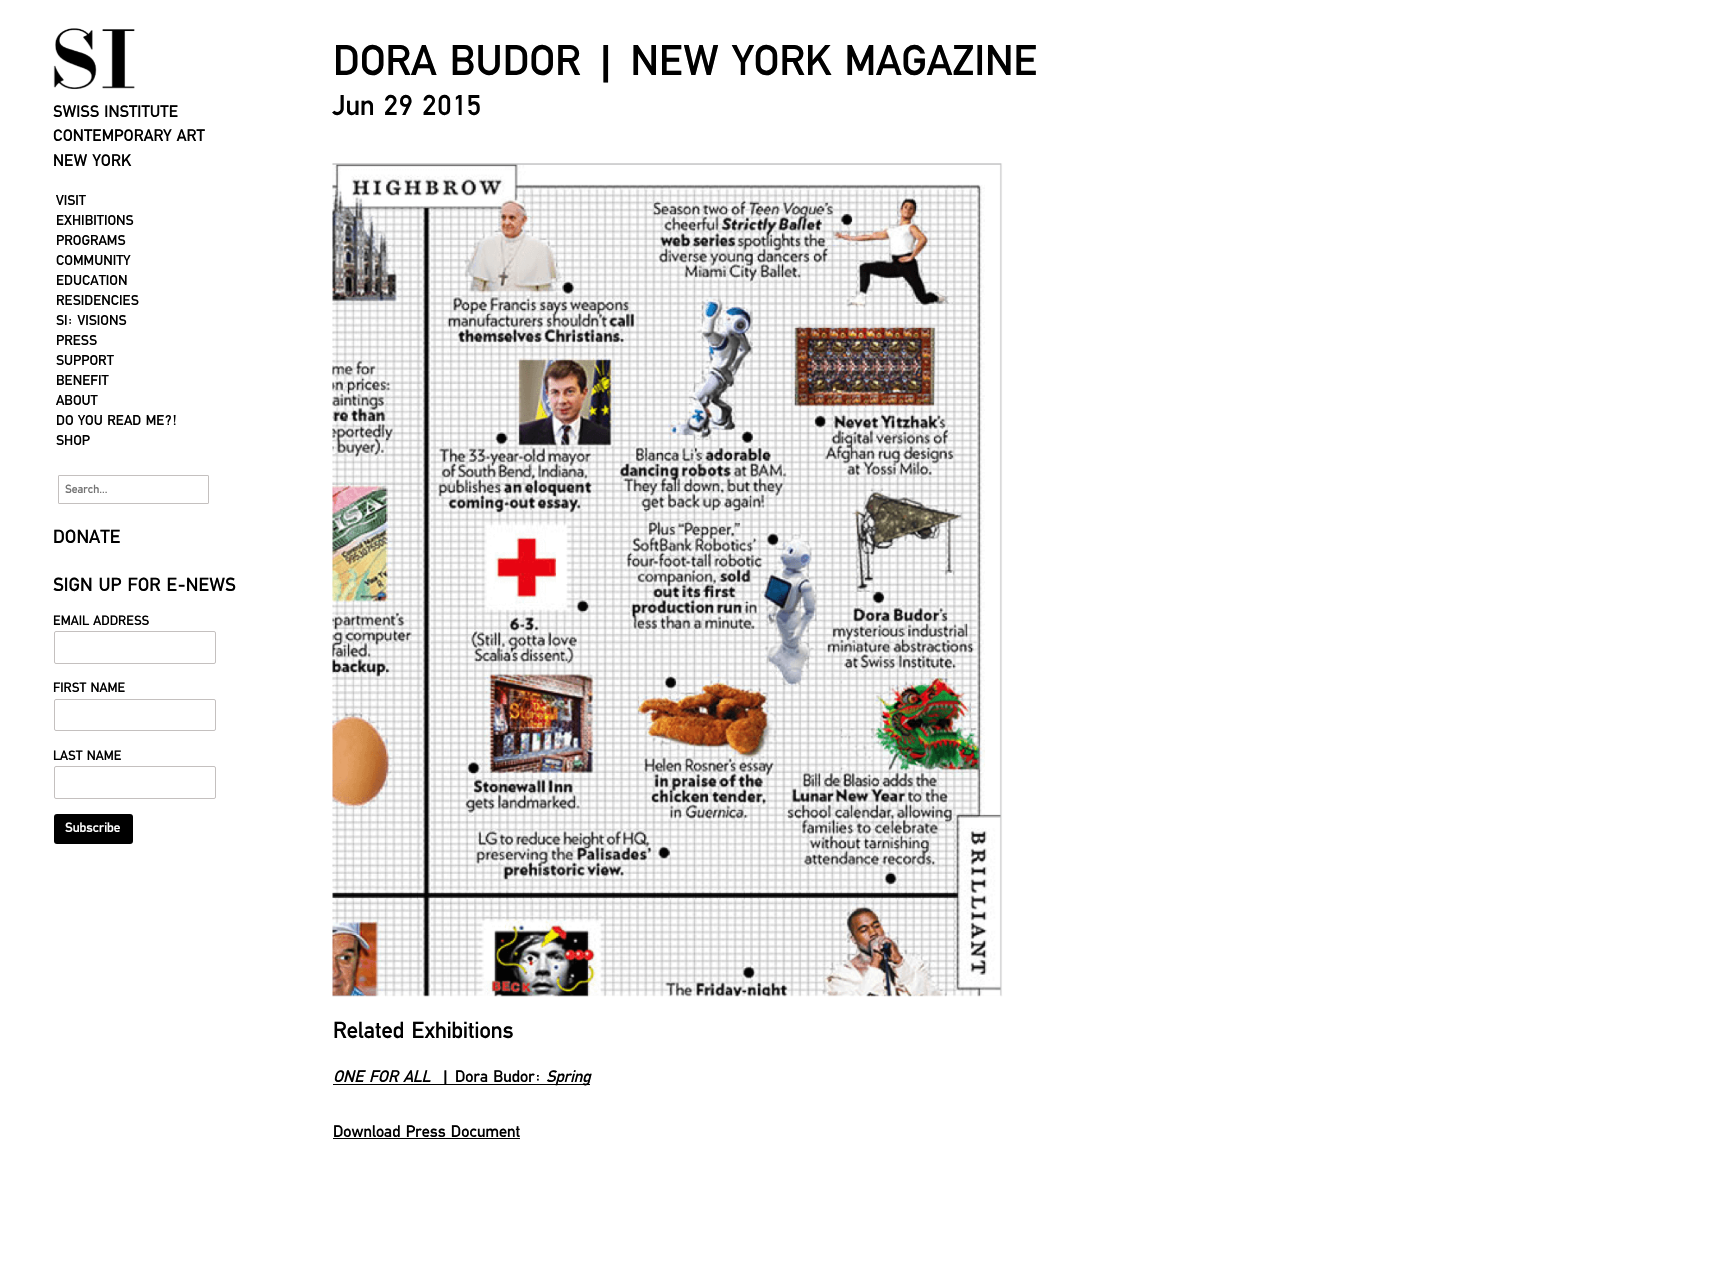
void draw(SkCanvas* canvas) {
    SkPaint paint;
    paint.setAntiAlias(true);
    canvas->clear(0xFFFFFFFF);
    canvas->drawImageRect(SkImages::DeferredFromEncodedData(SkData::MakeFromFileName("img1.png")), SkRect::MakeXYWH(53, 28, 82, 62), SkSamplingOptions());
    SkFont font1(fontMgr->matchFamilyStyle("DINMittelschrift", SkFontStyle::Normal()), 17.5f);
    font1.setSubpixel(true);
    paint.setColor(0xFF000000);
    canvas->drawString("SWISS INSTITUTE", 53, 117, font1, paint);
    canvas->drawString("CONTEMPORARY ART", 53, 141, font1, paint);
    canvas->drawString("NEW YORK", 53, 166, font1, paint);
    SkFont font2(fontMgr->matchFamilyStyle("DINMittelschrift", SkFontStyle::Normal()), 15);
    font2.setSubpixel(true);
    canvas->drawString("VISIT", 56, 205, font2, paint);
    canvas->drawString("EXHIBITIONS", 56, 225, font2, paint);
    canvas->drawString("PROGRAMS", 56, 245, font2, paint);
    canvas->drawString("COMMUNITY", 56, 265, font2, paint);
    canvas->drawString("EDUCATION", 56, 285, font2, paint);
    canvas->drawString("RESIDENCIES", 56, 305, font2, paint);
    canvas->drawString("SI: VISIONS", 56, 325, font2, paint);
    canvas->drawString("PRESS", 56, 345, font2, paint);
    canvas->drawString("SUPPORT", 56, 365, font2, paint);
    canvas->drawString("BENEFIT", 56, 385, font2, paint);
    canvas->drawString("ABOUT", 56, 405, font2, paint);
    canvas->drawString("DO YOU READ ME?!", 56, 425, font2, paint);
    canvas->drawString("SHOP", 56, 445, font2, paint);
    paint.setStyle(SkPaint::kStroke_Style);
    paint.setStrokeWidth(1);
    paint.setColor(0xFFC4C0BF);
    canvas->drawRoundRect(SkRect::MakeXYWH(58.5f, 475.5f, 150, 28), 0.5f, 0.5f, paint);
    SkFont font3(fontMgr->matchFamilyStyle("DINMittelschrift", SkFontStyle::Normal()), 12.5f);
    font3.setSubpixel(true);
    paint.setStyle(SkPaint::kFill_Style);
    paint.setColor(0xFF757575);
    canvas->drawString("Search...", 65, 493, font3, paint);
    SkFont font4(fontMgr->matchFamilyStyle("DINMittelschrift", SkFontStyle::Normal()), 20);
    font4.setSubpixel(true);
    paint.setColor(0xFF000000);
    canvas->drawString("DONATE", 53, 543, font4, paint);
    canvas->drawString("SIGN UP FOR E-NEWS", 53, 591, font4, paint);
    SkFont font5(fontMgr->matchFamilyStyle("DINMittelschrift", SkFontStyle::Normal()), 14.25f);
    font5.setSubpixel(true);
    canvas->drawString("EMAIL ADDRESS", 53, 625, font5, paint);
    paint.setStyle(SkPaint::kStroke_Style);
    paint.setColor(0xFFC4C0BF);
    canvas->drawRoundRect(SkRect::MakeXYWH(54.5f, 631.5f, 161, 32), 1.5f, 1.5f, paint);
    paint.setStyle(SkPaint::kFill_Style);
    paint.setColor(0xFF000000);
    canvas->drawString("FIRST NAME", 53, 692, font5, paint);
    paint.setStyle(SkPaint::kStroke_Style);
    paint.setColor(0xFFC4C0BF);
    canvas->drawRoundRect(SkRect::MakeXYWH(54.5f, 699.5f, 161, 31), 1.5f, 1.5f, paint);
    paint.setStyle(SkPaint::kFill_Style);
    paint.setColor(0xFF000000);
    canvas->drawString("LAST NAME", 53, 760, font5, paint);
    paint.setStyle(SkPaint::kStroke_Style);
    paint.setColor(0xFFC4C0BF);
    canvas->drawRoundRect(SkRect::MakeXYWH(54.5f, 766.5f, 161, 32), 1.5f, 1.5f, paint);
    paint.setStyle(SkPaint::kFill_Style);
    paint.setColor(0xFF000000);
    canvas->drawRoundRect(SkRect::MakeXYWH(54, 814, 79, 30), 3, 3, paint);
    paint.setColor(0xFFFFFFFF);
    canvas->drawString("Subscribe", 65, 832, font5, paint);
    SkFont font6(fontMgr->matchFamilyStyle("DINMittelschrift", SkFontStyle::Normal()), 45);
    font6.setSubpixel(true);
    paint.setColor(0xFF000000);
    canvas->drawString("DORA BUDOR | NEW YORK MAGAZINE", 333, 75, font6, paint);
    SkFont font7(fontMgr->matchFamilyStyle("DINMittelschrift", SkFontStyle::Normal()), 30);
    font7.setSubpixel(true);
    canvas->drawString("Jun 29 2015", 333, 115, font7, paint);
    canvas->drawImageRect(SkImages::DeferredFromEncodedData(SkData::MakeFromFileName("img2.png")), SkRect::MakeXYWH(332, 163, 671, 834), SkSamplingOptions());
    SkFont font8(fontMgr->matchFamilyStyle("DINMittelschrift", SkFontStyle::Normal()), 24.25f);
    font8.setSubpixel(true);
    canvas->drawString("Related Exhibitions", 333, 1038, font8, paint);
    SkFont font9(fontMgr->matchFamilyStyle("DINMittelschrift", SkFontStyle::Italic()), 17.5f);
    font9.setSubpixel(true);
    canvas->drawString("ONE FOR ALL", 333, 1082, font9, paint);
    canvas->drawRect(SkRect::MakeXYWH(333, 1084, 257, 1), paint);
    canvas->drawString("| Dora Budor:", 441, 1082, font1, paint);
    canvas->drawString("Spring", 546, 1082, font9, paint);
    canvas->drawString("Download Press Document", 333, 1137, font1, paint);
    canvas->drawRect(SkRect::MakeXYWH(333, 1138, 187, 1), paint);
}
